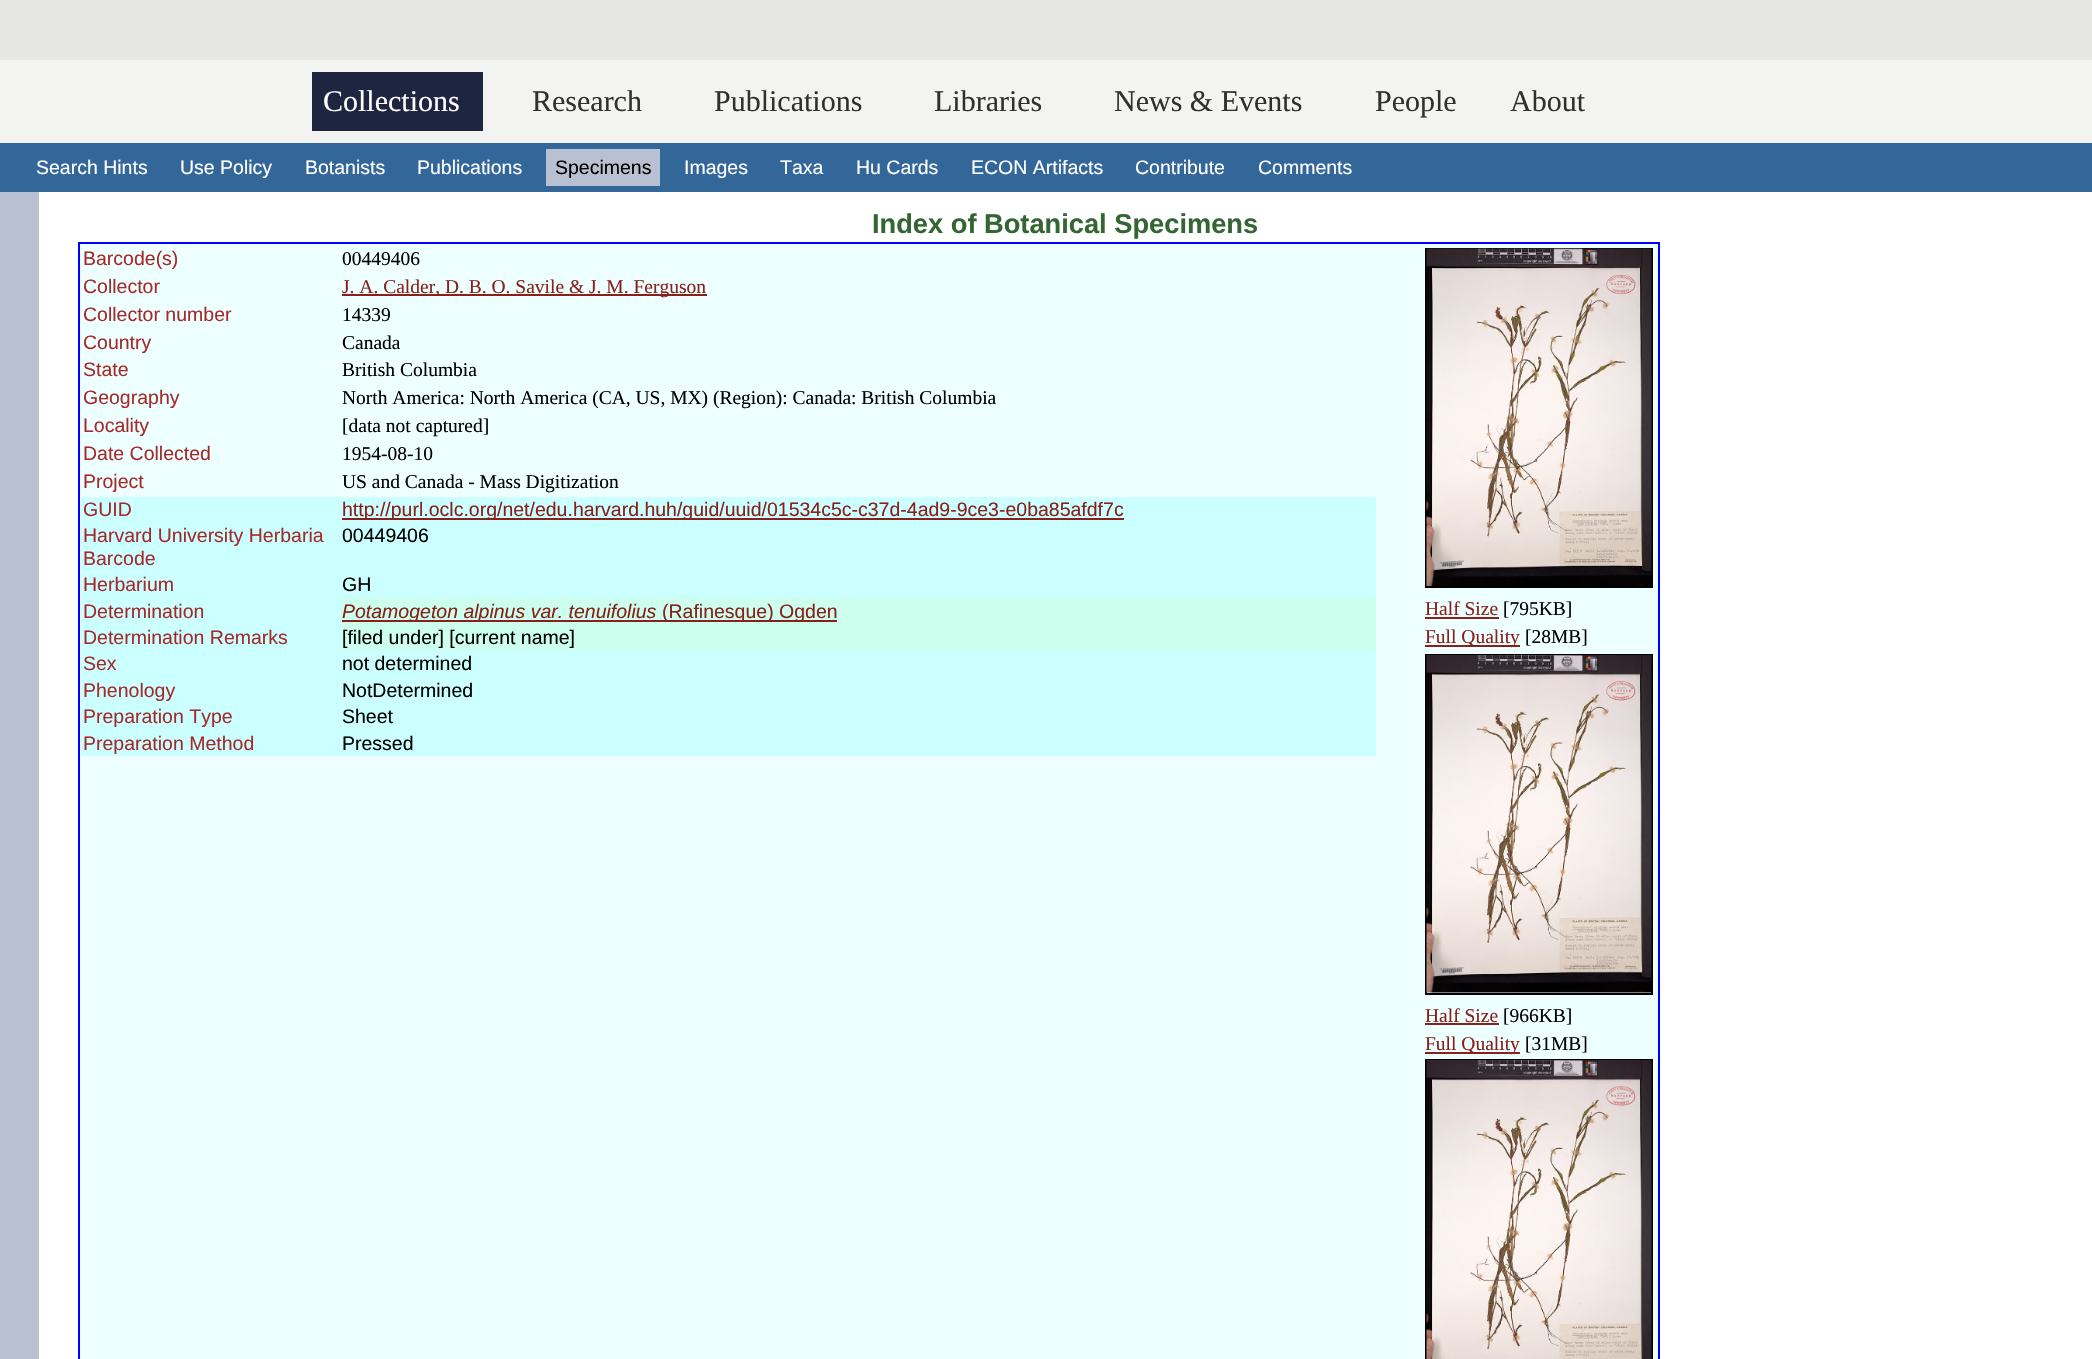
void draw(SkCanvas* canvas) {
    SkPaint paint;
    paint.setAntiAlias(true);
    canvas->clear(0xFFE6E6E3);
    paint.setColor(0xFFF3F3F1);
    canvas->drawRect(SkRect::MakeXYWH(0, 60, 2092, 83), paint);
    paint.setColor(0xFF1E2540);
    canvas->drawRect(SkRect::MakeXYWH(312, 72, 171, 59), paint);
    SkFont font1(fontMgr->matchFamilyStyle("Liberation Serif", SkFontStyle::Normal()), 30);
    font1.setSubpixel(true);
    paint.setColor(0xFFFFFFFF);
    canvas->drawString("Collections", 323, 111, font1, paint);
    paint.setColor(0xFF303030);
    canvas->drawString("Research", 532, 111, font1, paint);
    canvas->drawString("Publications", 714, 111, font1, paint);
    canvas->drawString("Libraries", 934, 111, font1, paint);
    canvas->drawString("News & Events", 1114, 111, font1, paint);
    canvas->drawString("People", 1375, 111, font1, paint);
    canvas->drawString("About", 1510, 111, font1, paint);
    paint.setColor(0xFF336699);
    canvas->drawRect(SkRect::MakeXYWH(0, 143, 2092, 49), paint);
    SkFont font2(fontMgr->matchFamilyStyle("Liberation Sans", SkFontStyle::Normal()), 19.5f);
    font2.setSubpixel(true);
    paint.setColor(0xFFFFFFFF);
    canvas->drawString("Search Hints", 36, 174, font2, paint);
    canvas->drawString("Use Policy", 180, 174, font2, paint);
    canvas->drawString("Botanists", 305, 174, font2, paint);
    canvas->drawString("Publications", 417, 174, font2, paint);
    paint.setColor(0xFFB8C0D2);
    canvas->drawRect(SkRect::MakeXYWH(546, 149, 114, 37), paint);
    paint.setColor(0xFF000000);
    canvas->drawString("Specimens", 555, 174, font2, paint);
    paint.setColor(0xFFFFFFFF);
    canvas->drawString("Images", 684, 174, font2, paint);
    canvas->drawString("Taxa", 780, 174, font2, paint);
    canvas->drawString("Hu Cards", 856, 174, font2, paint);
    canvas->drawString("ECON Artifacts", 971, 174, font2, paint);
    canvas->drawString("Contribute", 1135, 174, font2, paint);
    canvas->drawString("Comments", 1258, 174, font2, paint);
    paint.setColor(0xFFB8C0D2);
    canvas->drawRect(SkRect::MakeXYWH(0, 192, 39, 1167), paint);
    paint.setColor(0xFFFFFFFF);
    canvas->drawRect(SkRect::MakeXYWH(39, 192, 2053, 1167), paint);
    SkFont font3(fontMgr->matchFamilyStyle("Liberation Sans", SkFontStyle::Bold()), 27.25f);
    font3.setSubpixel(true);
    paint.setColor(0xFF336633);
    canvas->drawString("Index of Botanical Specimens", 872, 233, font3, paint);
    paint.setColor(0xFFEEFFFF);
    canvas->drawRect(SkRect::MakeXYWH(80, 244, 1578, 1115), paint);
    paint.setColor(0xFF0000FF);
    canvas->drawRect(SkRect::MakeXYWH(78, 242, 1581, 2), paint);
    canvas->drawRect(SkRect::MakeXYWH(1658, 242, 2, 1117), paint);
    canvas->drawRect(SkRect::MakeXYWH(78, 242, 2, 1117), paint);
    paint.setColor(0xFFA52A2A);
    canvas->drawString("Barcode(s)", 83, 265, font2, paint);
    SkFont font4(fontMgr->matchFamilyStyle("Liberation Serif", SkFontStyle::Normal()), 19.5f);
    font4.setSubpixel(true);
    paint.setColor(0xFF000000);
    canvas->drawString("00449406", 342, 265, font4, paint);
    paint.setColor(0xFFA52A2A);
    canvas->drawString("Collector", 83, 293, font2, paint);
    paint.setColor(0xFF89201B);
    canvas->drawRect(SkRect::MakeXYWH(342, 294, 365, 2), paint);
    canvas->drawString("J. A. Calder, D. B. O. Savile & J. M. Ferguson", 342, 293, font4, paint);
    paint.setColor(0xFFA52A2A);
    canvas->drawString("Collector number", 83, 321, font2, paint);
    paint.setColor(0xFF000000);
    canvas->drawString("14339", 342, 321, font4, paint);
    paint.setColor(0xFFA52A2A);
    canvas->drawString("Country", 83, 349, font2, paint);
    paint.setColor(0xFF000000);
    canvas->drawString("Canada", 342, 349, font4, paint);
    paint.setColor(0xFFA52A2A);
    canvas->drawString("State", 83, 376, font2, paint);
    paint.setColor(0xFF000000);
    canvas->drawString("British Columbia", 342, 376, font4, paint);
    paint.setColor(0xFFA52A2A);
    canvas->drawString("Geography", 83, 404, font2, paint);
    paint.setColor(0xFF000000);
    canvas->drawString("North America: North America (CA, US, MX) (Region): Canada: British Columbia", 342, 404, font4, paint);
    paint.setColor(0xFFA52A2A);
    canvas->drawString("Locality", 83, 432, font2, paint);
    paint.setColor(0xFF000000);
    canvas->drawString("[data not captured]", 342, 432, font4, paint);
    paint.setColor(0xFFA52A2A);
    canvas->drawString("Date Collected", 83, 460, font2, paint);
    paint.setColor(0xFF000000);
    canvas->drawString("1954-08-10", 342, 460, font4, paint);
    paint.setColor(0xFFA52A2A);
    canvas->drawString("Project", 83, 488, font2, paint);
    paint.setColor(0xFF000000);
    canvas->drawString("US and Canada - Mass Digitization", 342, 488, font4, paint);
    paint.setColor(0xFFCCFFFF);
    canvas->drawRect(SkRect::MakeXYWH(81, 497, 1295, 100), paint);
    paint.setColor(0xFFA52A2A);
    canvas->drawString("GUID", 83, 516, font2, paint);
    paint.setColor(0xFF89201B);
    canvas->drawRect(SkRect::MakeXYWH(342, 518, 782, 2), paint);
    canvas->drawString("http://purl.oclc.org/net/edu.harvard.huh/guid/uuid/01534c5c-c37d-4ad9-9ce3-e0ba85afdf7c", 342, 516, font2, paint);
    paint.setColor(0xFFA52A2A);
    canvas->drawString("Harvard University Herbaria", 83, 542, font2, paint);
    canvas->drawString("Barcode", 83, 565, font2, paint);
    paint.setColor(0xFF000000);
    canvas->drawString("00449406", 342, 542, font2, paint);
    paint.setColor(0xFFA52A2A);
    canvas->drawString("Herbarium", 83, 591, font2, paint);
    paint.setColor(0xFF000000);
    canvas->drawString("GH", 342, 591, font2, paint);
    paint.setColor(0xFFCCFFFF);
    canvas->drawRect(SkRect::MakeXYWH(81, 597, 260, 54), paint);
    paint.setColor(0xFFA52A2A);
    canvas->drawString("Determination", 83, 618, font2, paint);
    paint.setColor(0xFFCCFFEE);
    canvas->drawRect(SkRect::MakeXYWH(341, 597, 1035, 54), paint);
    paint.setColor(0xFF89201B);
    canvas->drawRect(SkRect::MakeXYWH(342, 620, 495, 2), paint);
    SkFont font5(fontMgr->matchFamilyStyle("Liberation Sans", SkFontStyle::Italic()), 19.5f);
    font5.setSubpixel(true);
    canvas->drawString("Potamogeton alpinus var. tenuifolius", 342, 618, font5, paint);
    canvas->drawString("(Rafinesque) Ogden", 662, 618, font2, paint);
    paint.setColor(0xFFA52A2A);
    canvas->drawString("Determination Remarks", 83, 644, font2, paint);
    paint.setColor(0xFF000000);
    canvas->drawString("[filed under] [current name]", 342, 644, font2, paint);
    paint.setColor(0xFFCCFFFF);
    canvas->drawRect(SkRect::MakeXYWH(81, 651, 1295, 105), paint);
    paint.setColor(0xFFA52A2A);
    canvas->drawString("Sex", 83, 670, font2, paint);
    paint.setColor(0xFF000000);
    canvas->drawString("not determined", 342, 670, font2, paint);
    paint.setColor(0xFFA52A2A);
    canvas->drawString("Phenology", 83, 697, font2, paint);
    paint.setColor(0xFF000000);
    canvas->drawString("NotDetermined", 342, 697, font2, paint);
    paint.setColor(0xFFA52A2A);
    canvas->drawString("Preparation Type", 83, 723, font2, paint);
    paint.setColor(0xFF000000);
    canvas->drawString("Sheet", 342, 723, font2, paint);
    paint.setColor(0xFFA52A2A);
    canvas->drawString("Preparation Method", 83, 750, font2, paint);
    paint.setColor(0xFF000000);
    canvas->drawString("Pressed", 342, 750, font2, paint);
    paint.setStyle(SkPaint::kStroke_Style);
    paint.setStrokeWidth(2);
    canvas->drawRect(SkRect::MakeXYWH(1426, 249, 226, 338), paint);
    canvas->drawImageRect(SkImages::DeferredFromEncodedData(SkData::MakeFromFileName("img1.png")), SkRect::MakeXYWH(1426, 248, 226, 338), SkSamplingOptions());
    paint.setStyle(SkPaint::kFill_Style);
    paint.setColor(0xFF89201B);
    canvas->drawString("Half Size", 1425, 615, font4, paint);
    canvas->drawRect(SkRect::MakeXYWH(1425, 617, 74, 2), paint);
    paint.setColor(0xFF000000);
    canvas->drawString("[795KB]", 1503, 615, font4, paint);
    paint.setColor(0xFF89201B);
    canvas->drawRect(SkRect::MakeXYWH(1425, 645, 95, 2), paint);
    canvas->drawString("Full Quality", 1425, 643, font4, paint);
    paint.setColor(0xFF000000);
    canvas->drawString("[28MB]", 1525, 643, font4, paint);
    paint.setStyle(SkPaint::kStroke_Style);
    canvas->drawRect(SkRect::MakeXYWH(1426, 655, 226, 339), paint);
    canvas->drawImageRect(SkImages::DeferredFromEncodedData(SkData::MakeFromFileName("img2.png")), SkRect::MakeXYWH(1426, 655, 226, 338), SkSamplingOptions());
    paint.setStyle(SkPaint::kFill_Style);
    paint.setColor(0xFF89201B);
    canvas->drawString("Half Size", 1425, 1022, font4, paint);
    canvas->drawRect(SkRect::MakeXYWH(1425, 1023, 74, 2), paint);
    paint.setColor(0xFF000000);
    canvas->drawString("[966KB]", 1503, 1022, font4, paint);
    paint.setColor(0xFF89201B);
    canvas->drawRect(SkRect::MakeXYWH(1425, 1052, 95, 2), paint);
    canvas->drawString("Full Quality", 1425, 1050, font4, paint);
    paint.setColor(0xFF000000);
    canvas->drawString("[31MB]", 1525, 1050, font4, paint);
    paint.setStyle(SkPaint::kStroke_Style);
    canvas->drawRect(SkRect::MakeXYWH(1426, 1060, 226, 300), paint);
    canvas->drawImageRect(SkImages::DeferredFromEncodedData(SkData::MakeFromFileName("img3.png")), SkRect::MakeXYWH(1426, 1060, 226, 299), SkSamplingOptions());
}
